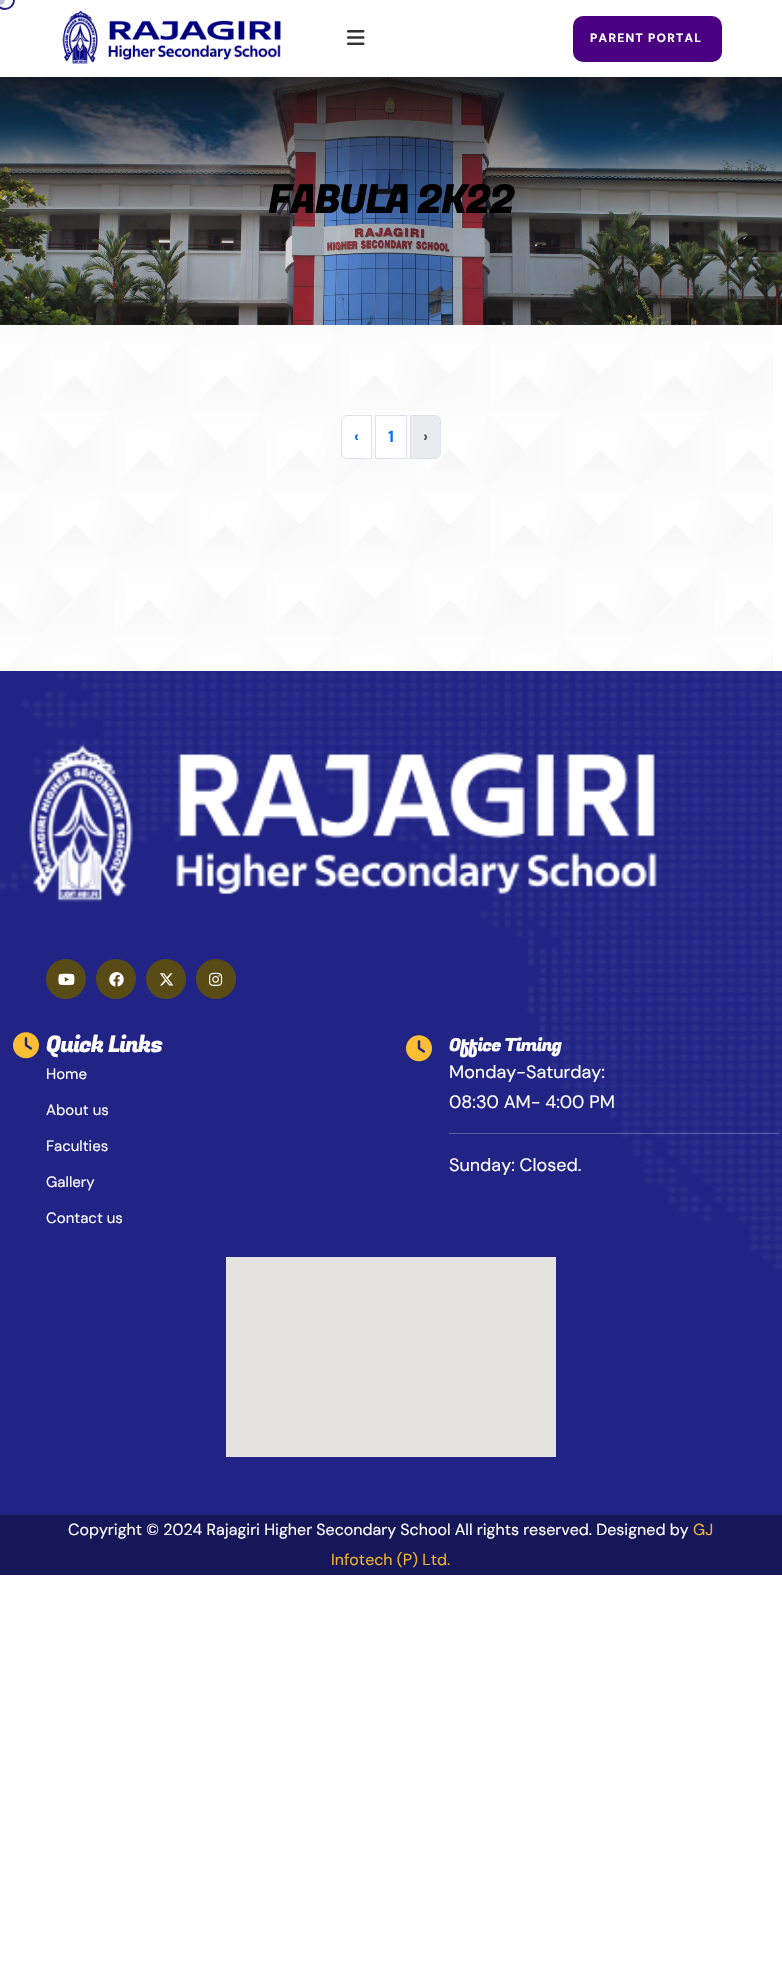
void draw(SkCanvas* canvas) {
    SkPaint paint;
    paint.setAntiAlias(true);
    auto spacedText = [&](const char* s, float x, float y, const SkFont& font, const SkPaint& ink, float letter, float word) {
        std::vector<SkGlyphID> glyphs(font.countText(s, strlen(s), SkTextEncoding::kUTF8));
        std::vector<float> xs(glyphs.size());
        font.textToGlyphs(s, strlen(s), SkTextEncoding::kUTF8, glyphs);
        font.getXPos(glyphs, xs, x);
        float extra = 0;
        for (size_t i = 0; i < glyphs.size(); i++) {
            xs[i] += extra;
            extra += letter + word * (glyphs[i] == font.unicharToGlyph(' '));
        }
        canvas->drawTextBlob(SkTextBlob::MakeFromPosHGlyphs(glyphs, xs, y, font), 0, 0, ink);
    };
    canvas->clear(0xFFFFFFFF);
    canvas->drawImageRect(SkImages::DeferredFromEncodedData(SkData::MakeFromFileName("img4.png")), SkRect::MakeXYWH(0, 77, 782, 248), SkSamplingOptions());
    paint.setColor(0x1A000000);
    paint.setMaskFilter(SkMaskFilter::MakeBlur(kNormal_SkBlurStyle, 30));
    canvas->drawRect(SkRect::MakeXYWH(0, 10, 782, 77), paint);
    paint.setMaskFilter(nullptr);
    paint.setColor(0xFFFFFFFF);
    canvas->drawRect(SkRect::MakeXYWH(0, 0, 782, 77), paint);
    paint.setStyle(SkPaint::kStroke_Style);
    paint.setStrokeWidth(2);
    paint.setColor(0xFF212485);
    canvas->drawCircle(5, 0, 9, paint);
    paint.setStyle(SkPaint::kFill_Style);
    paint.setColor(0xFFBCBDDA);
    canvas->drawCircle(0, 0, 5, paint);
    canvas->drawImageRect(SkImages::DeferredFromEncodedData(SkData::MakeFromFileName("img1.png")), SkRect::MakeXYWH(0, 325, 773, 346), SkSamplingOptions());
    canvas->drawImageRect(SkImages::DeferredFromEncodedData(SkData::MakeFromFileName("img2.png")), SkRect::MakeXYWH(62, 10, 219, 54), SkSamplingOptions());
    canvas->drawImageRect(SkImages::DeferredFromEncodedData(SkData::MakeFromFileName("img3.png")), SkRect::MakeXYWH(347, 30, 18, 15), SkSamplingOptions());
    paint.setColor(0xFF4B0082);
    canvas->drawRoundRect(SkRect::MakeXYWH(573, 16, 149, 46), 10, 10, paint);
    SkFont font1(fontMgr->matchFamilyStyle("DM Sans", SkFontStyle::Bold()), 12);
    font1.setSubpixel(true);
    paint.setColor(0xFFFFFFFF);
    spacedText("PARENT PORTAL", 590, 42, font1, paint, 1.25f, 0);
    SkFont font2(fontMgr->matchFamilyStyle("Fugaz One", SkFontStyle::Normal()), 40);
    font2.setSubpixel(true);
    paint.setColor(0xFF000000);
    spacedText("FABULA 2K22", 268, 213, font2, paint, -1.6f, 0);
    paint.setColor(0xFFFFFFFF);
    canvas->drawPath(SkPathBuilder().moveTo(347, 415.5f).lineTo(371.5f, 415.5f).lineTo(371.5f, 458.5f).lineTo(347, 458.5f).cubicTo(344, 458.5f, 341.5f, 456, 341.5f, 453).lineTo(341.5f, 421).cubicTo(341.5f, 418, 344, 415.5f, 347, 415.5f).close().detach(), paint);
    paint.setStyle(SkPaint::kStroke_Style);
    paint.setStrokeWidth(1);
    paint.setColor(0xFFDEE2E6);
    canvas->drawPath(SkPathBuilder().moveTo(347, 415.5f).lineTo(371.5f, 415.5f).lineTo(371.5f, 458.5f).lineTo(347, 458.5f).cubicTo(344, 458.5f, 341.5f, 456, 341.5f, 453).lineTo(341.5f, 421).cubicTo(341.5f, 418, 344, 415.5f, 347, 415.5f).close().detach(), paint);
    SkFont font3(fontMgr->matchFamilyStyle("DM Sans", SkFontStyle::Bold()), 16);
    font3.setSubpixel(true);
    paint.setStyle(SkPaint::kFill_Style);
    paint.setColor(0xFF0D6EFD);
    canvas->drawString("‹", 354, 442, font3, paint);
    paint.setColor(0xFFFFFFFF);
    canvas->drawRect(SkRect::MakeXYWH(376, 419, 30, 39), paint);
    paint.setStyle(SkPaint::kStroke_Style);
    paint.setColor(0xFFDEE2E6);
    canvas->drawRect(SkRect::MakeXYWH(375.5f, 415.5f, 31, 43), paint);
    paint.setStyle(SkPaint::kFill_Style);
    paint.setColor(0xFF0D6EFD);
    canvas->drawString("1", 388, 442, font3, paint);
    paint.setColor(0xFFE9ECEF);
    canvas->drawPath(SkPathBuilder().moveTo(410.5f, 415.5f).lineTo(435, 415.5f).cubicTo(438, 415.5f, 440.5f, 418, 440.5f, 421).lineTo(440.5f, 453).cubicTo(440.5f, 456, 438, 458.5f, 435, 458.5f).lineTo(410.5f, 458.5f).close().detach(), paint);
    paint.setStyle(SkPaint::kStroke_Style);
    paint.setColor(0xFFDEE2E6);
    canvas->drawPath(SkPathBuilder().moveTo(410.5f, 415.5f).lineTo(435, 415.5f).cubicTo(438, 415.5f, 440.5f, 418, 440.5f, 421).lineTo(440.5f, 453).cubicTo(440.5f, 456, 438, 458.5f, 435, 458.5f).lineTo(410.5f, 458.5f).close().detach(), paint);
    paint.setStyle(SkPaint::kFill_Style);
    paint.setColor(0xFF53575B);
    canvas->drawString("›", 423, 442, font3, paint);
    paint.setColor(0xFF212485);
    canvas->drawRect(SkRect::MakeXYWH(0, 671, 782, 844), paint);
    canvas->drawImageRect(SkImages::DeferredFromEncodedData(SkData::MakeFromFileName("img5.png")), SkRect::MakeXYWH(0, 671, 782, 598), SkSamplingOptions());
    canvas->drawImageRect(SkImages::DeferredFromEncodedData(SkData::MakeFromFileName("img6.png")), SkRect::MakeXYWH(29, 744, 628, 158), SkSamplingOptions());
    paint.setColor(0xFF594B16);
    canvas->drawCircle(66, 979, 20, paint);
    canvas->drawImageRect(SkImages::DeferredFromEncodedData(SkData::MakeFromFileName("img7.png")), SkRect::MakeXYWH(58, 973, 17, 12), SkSamplingOptions());
    canvas->drawCircle(116, 979, 20, paint);
    canvas->drawImageRect(SkImages::DeferredFromEncodedData(SkData::MakeFromFileName("img8.png")), SkRect::MakeXYWH(109, 972, 15, 15), SkSamplingOptions());
    canvas->drawCircle(166, 979, 20, paint);
    canvas->drawImageRect(SkImages::DeferredFromEncodedData(SkData::MakeFromFileName("img9.png")), SkRect::MakeXYWH(159, 973, 15, 13), SkSamplingOptions());
    canvas->drawCircle(216, 979, 20, paint);
    canvas->drawImageRect(SkImages::DeferredFromEncodedData(SkData::MakeFromFileName("img10.png")), SkRect::MakeXYWH(209, 972, 14, 14), SkSamplingOptions());
    canvas->drawImageRect(SkImages::DeferredFromEncodedData(SkData::MakeFromFileName("img11.png")), SkRect::MakeXYWH(13, 1032, 26, 27), SkSamplingOptions());
    SkFont font4(fontMgr->matchFamilyStyle("Fugaz One", SkFontStyle::Normal()), 22.75f);
    font4.setSubpixel(true);
    paint.setColor(0xFFFFFFFF);
    spacedText("Quick Links", 46, 1052, font4, paint, -1, 0);
    SkFont font5(fontMgr->matchFamilyStyle("DM Sans", SkFontStyle::Normal()), 15);
    font5.setSubpixel(true);
    canvas->drawString("Home", 46, 1079, font5, paint);
    canvas->drawString("About us", 46, 1115, font5, paint);
    canvas->drawString("Faculties", 46, 1151, font5, paint);
    canvas->drawString("Gallery", 46, 1187, font5, paint);
    canvas->drawString("Contact us", 46, 1223, font5, paint);
    canvas->drawImageRect(SkImages::DeferredFromEncodedData(SkData::MakeFromFileName("img11.png")), SkRect::MakeXYWH(406, 1035, 26, 27), SkSamplingOptions());
    SkFont font6(fontMgr->matchFamilyStyle("Fugaz One", SkFontStyle::Normal()), 18);
    font6.setSubpixel(true);
    spacedText("Office Timing", 449, 1051, font6, paint, -0.75f, 0);
    SkFont font7(fontMgr->matchFamilyStyle("DM Sans", SkFontStyle::Normal()), 18);
    font7.setSubpixel(true);
    canvas->drawString("Monday-Saturday:", 449, 1078, font7, paint);
    canvas->drawString("08:30 AM- 4:00 PM", 449, 1108, font7, paint);
    paint.setColor(0x40FFFFFF);
    canvas->drawRect(SkRect::MakeXYWH(449, 1133, 330, 1), paint);
    paint.setColor(0xFFFFFFFF);
    canvas->drawString("Sunday: Closed.", 449, 1171, font7, paint);
    paint.setColor(0xFFE5E3DF);
    canvas->drawRect(SkRect::MakeXYWH(226, 1257, 330, 200), paint);
    paint.setColor(0xFF151759);
    canvas->drawRect(SkRect::MakeXYWH(0, 1515, 782, 60), paint);
    SkFont font8(fontMgr->matchFamilyStyle("DM Sans", SkFontStyle::Normal()), 16);
    font8.setSubpixel(true);
    paint.setColor(0xFFFFFFFF);
    canvas->drawString("Copyright © 2024 Rajagiri Higher Secondary School All rights reserved. Designed by", 68, 1535, font8, paint);
    paint.setColor(0xFFF3B42D);
    canvas->drawString("GJ", 693, 1535, font8, paint);
    canvas->drawString("Infotech (P) Ltd.", 331, 1565, font8, paint);
}
